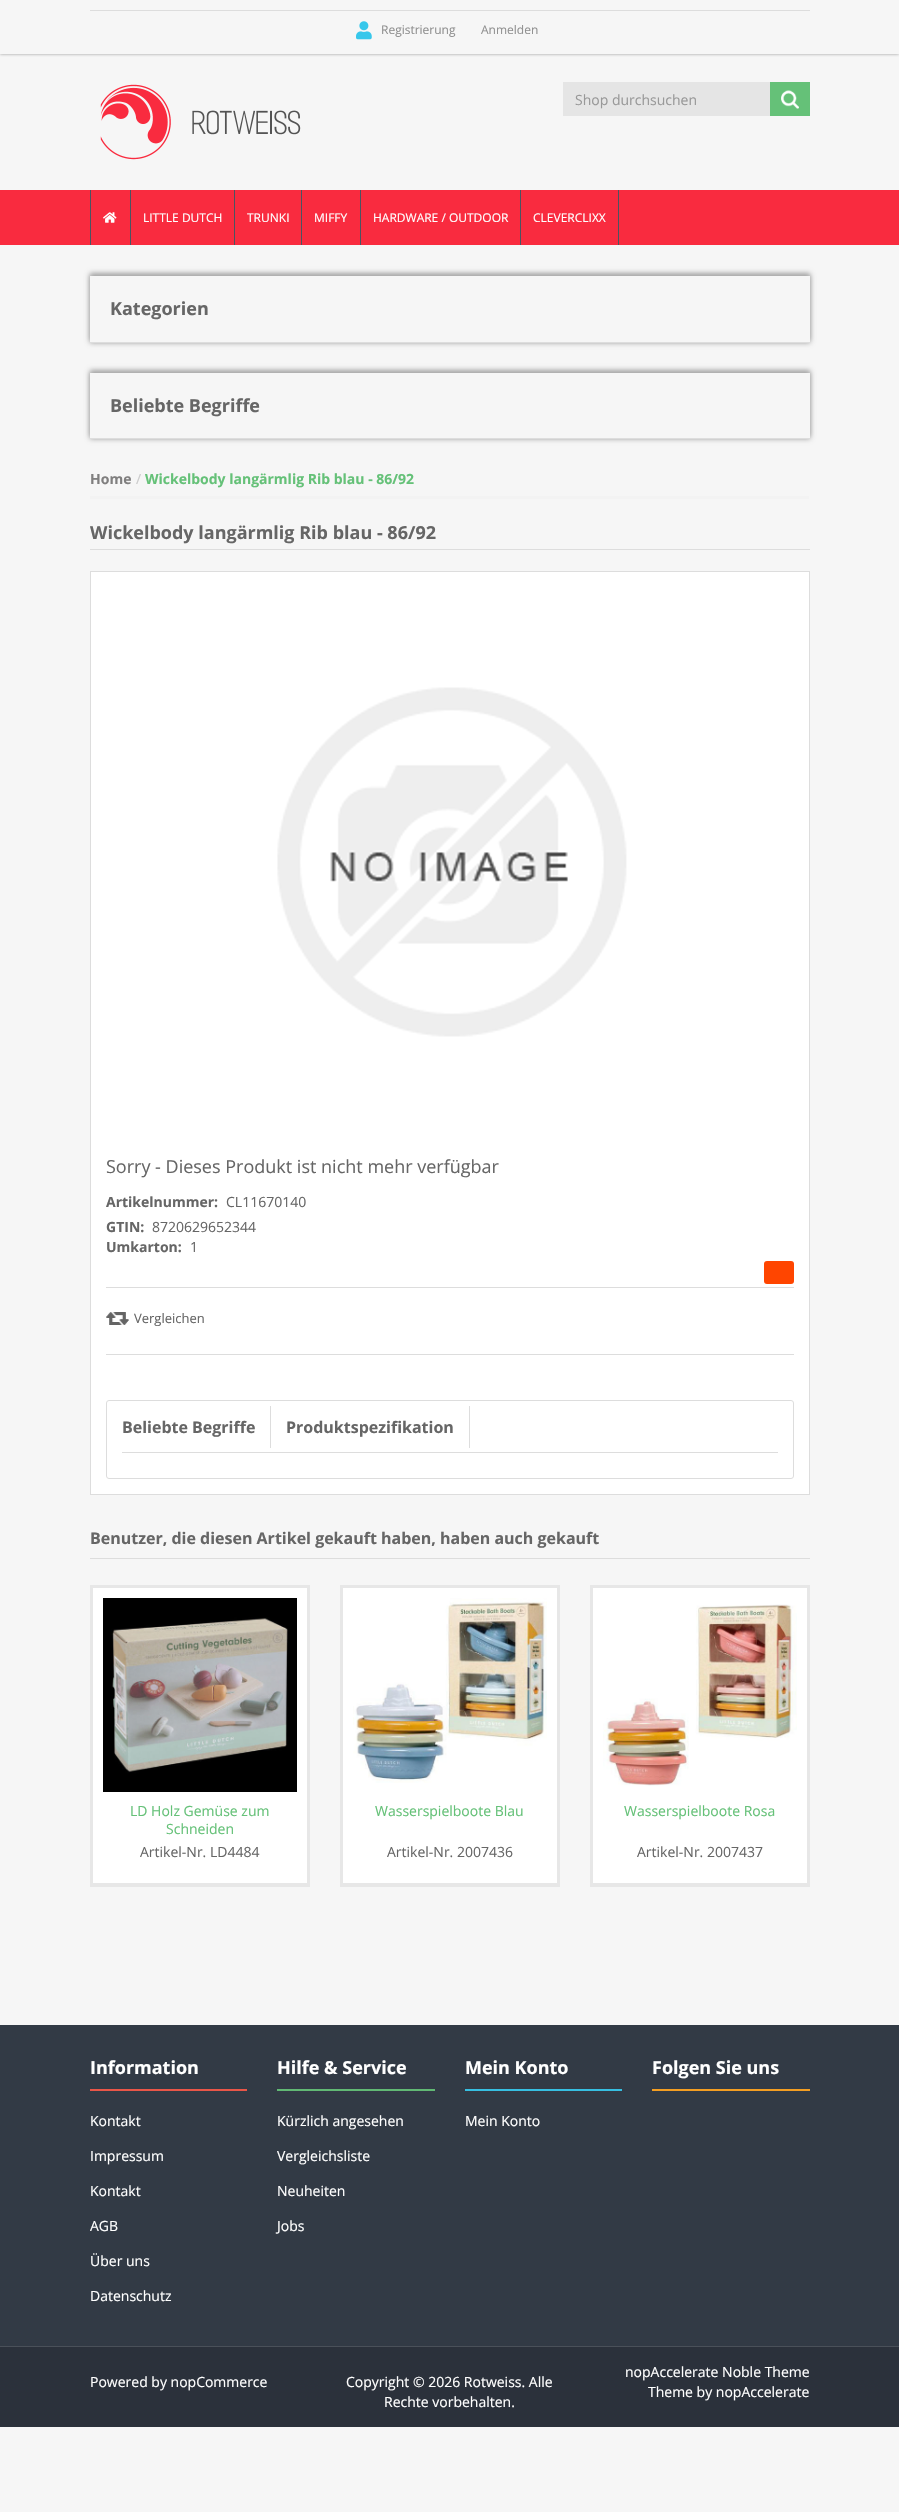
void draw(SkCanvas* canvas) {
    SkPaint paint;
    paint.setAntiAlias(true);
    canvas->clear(0xFFF6F6F6);
    canvas->save();
    canvas->clipRect(SkRect::MakeXYWH(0, 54, 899, 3));
    paint.setColor(0xFF999999);
    paint.setMaskFilter(SkMaskFilter::MakeBlur(kNormal_SkBlurStyle, 1.5f));
    canvas->drawRect(SkRect::MakeXYWH(0, 0, 899, 54), paint);
    paint.setMaskFilter(nullptr);
    canvas->restore();
    paint.setColor(0xFFDDDDDD);
    canvas->drawRect(SkRect::MakeXYWH(90, 10, 720, 1), paint);
    canvas->drawImageRect(SkImages::DeferredFromEncodedData(SkData::MakeFromFileName("img1.png")), SkRect::MakeXYWH(356, 21, 16, 19), SkSamplingOptions());
    SkFont font1(fontMgr->matchFamilyStyle("Open Sans", SkFontStyle::Normal()), 12);
    font1.setSubpixel(true);
    paint.setColor(0xFF909090);
    canvas->drawString("Registrierung", 381, 34, font1, paint);
    canvas->drawString("Anmelden", 481, 34, font1, paint);
    canvas->drawImageRect(SkImages::DeferredFromEncodedData(SkData::MakeFromFileName("img2.png")), SkRect::MakeXYWH(100, 84, 201, 76), SkSamplingOptions());
    paint.setColor(0xFFE5E5E5);
    canvas->drawRect(SkRect::MakeXYWH(563, 82, 207, 34), paint);
    SkFont font2(fontMgr->matchFamilyStyle("Open Sans", SkFontStyle::Normal()), 14);
    font2.setSubpixel(true);
    paint.setColor(0xFF999999);
    canvas->drawString("Shop durchsuchen", 575, 105, font2, paint);
    paint.setColor(0xFF65C178);
    canvas->drawRect(SkRect::MakeXYWH(770, 82, 40, 34), paint);
    canvas->drawImageRect(SkImages::DeferredFromEncodedData(SkData::MakeFromFileName("img3.png")), SkRect::MakeXYWH(781, 90, 18, 19), SkSamplingOptions());
    paint.setColor(0xFFF92B3F);
    canvas->drawRect(SkRect::MakeXYWH(0, 190, 899, 55), paint);
    paint.setColor(0xFF4B5461);
    canvas->drawRect(SkRect::MakeXYWH(130, 190, 1, 55), paint);
    canvas->drawRect(SkRect::MakeXYWH(90, 190, 1, 55), paint);
    canvas->drawImageRect(SkImages::DeferredFromEncodedData(SkData::MakeFromFileName("img4.png")), SkRect::MakeXYWH(103, 212, 14, 11), SkSamplingOptions());
    canvas->drawRect(SkRect::MakeXYWH(234, 190, 1, 55), paint);
    paint.setColor(0xFFFFFFFF);
    canvas->drawString("LITTLE DUTCH", 143, 222, font1, paint);
    paint.setColor(0xFF4B5461);
    canvas->drawRect(SkRect::MakeXYWH(301, 190, 1, 55), paint);
    paint.setColor(0xFFFFFFFF);
    canvas->drawString("TRUNKI", 247, 222, font1, paint);
    paint.setColor(0xFF4B5461);
    canvas->drawRect(SkRect::MakeXYWH(360, 190, 1, 55), paint);
    paint.setColor(0xFFFFFFFF);
    canvas->drawString("MIFFY", 314, 222, font1, paint);
    paint.setColor(0xFF4B5461);
    canvas->drawRect(SkRect::MakeXYWH(520, 190, 1, 55), paint);
    paint.setColor(0xFFFFFFFF);
    canvas->drawString("HARDWARE / OUTDOOR", 373, 222, font1, paint);
    paint.setColor(0xFF4B5461);
    canvas->drawRect(SkRect::MakeXYWH(618, 190, 1, 55), paint);
    paint.setColor(0xFFFFFFFF);
    canvas->drawString("CLEVERCLIXX", 533, 222, font1, paint);
    paint.setColor(0xFFAAAAAA);
    paint.setMaskFilter(SkMaskFilter::MakeBlur(kNormal_SkBlurStyle, 2.5f));
    canvas->drawRect(SkRect::MakeXYWH(90, 276, 720, 67), paint);
    paint.setMaskFilter(nullptr);
    paint.setMaskFilter(SkMaskFilter::MakeBlur(kNormal_SkBlurStyle, 2.5f));
    canvas->drawRect(SkRect::MakeXYWH(90, 273, 720, 67), paint);
    paint.setMaskFilter(nullptr);
    paint.setColor(0xFFF6F6F6);
    canvas->drawRect(SkRect::MakeXYWH(90, 276, 720, 66), paint);
    paint.setColor(0xFFDDDDDD);
    canvas->drawRect(SkRect::MakeXYWH(90, 342, 720, 1), paint);
    SkFont font3(fontMgr->matchFamilyStyle("Open Sans", SkFontStyle::Bold()), 18);
    font3.setSubpixel(true);
    paint.setColor(0xFF666666);
    canvas->drawString("Kategorien", 110, 315, font3, paint);
    paint.setColor(0xFFAAAAAA);
    paint.setMaskFilter(SkMaskFilter::MakeBlur(kNormal_SkBlurStyle, 2.5f));
    canvas->drawRect(SkRect::MakeXYWH(90, 373, 720, 66), paint);
    paint.setMaskFilter(nullptr);
    paint.setMaskFilter(SkMaskFilter::MakeBlur(kNormal_SkBlurStyle, 2.5f));
    canvas->drawRect(SkRect::MakeXYWH(90, 370, 720, 66), paint);
    paint.setMaskFilter(nullptr);
    paint.setColor(0xFFF6F6F6);
    canvas->drawRect(SkRect::MakeXYWH(90, 373, 720, 65), paint);
    paint.setColor(0xFFDDDDDD);
    canvas->drawRect(SkRect::MakeXYWH(90, 438, 720, 1), paint);
    paint.setColor(0xFF666666);
    canvas->drawString("Beliebte Begriffe", 110, 412, font3, paint);
    paint.setColor(0xFFF3F3F3);
    canvas->drawRect(SkRect::MakeXYWH(90, 496, 719, 3), paint);
    SkFont font4(fontMgr->matchFamilyStyle("Open Sans", SkFontStyle::Bold()), 14);
    font4.setSubpixel(true);
    paint.setColor(0xFF807F7F);
    canvas->drawString("Home", 90, 484, font4, paint);
    paint.setColor(0xFFCCCCCC);
    canvas->drawString("/", 136, 484, font2, paint);
    paint.setColor(0xFF65C178);
    canvas->drawString("Wickelbody langärmlig Rib blau - 86/92", 145, 484, font4, paint);
    paint.setColor(0xFFDDDDDD);
    canvas->drawRect(SkRect::MakeXYWH(90, 549, 720, 1), paint);
    paint.setColor(0xFF666666);
    canvas->drawString("Wickelbody langärmlig Rib blau - 86/92", 90, 539, font3, paint);
    paint.setColor(0xFFFFFFFF);
    canvas->drawRect(SkRect::MakeXYWH(90.5f, 571.5f, 719, 923), paint);
    paint.setStyle(SkPaint::kStroke_Style);
    paint.setStrokeWidth(1);
    paint.setColor(0xFFDDDDDD);
    canvas->drawRect(SkRect::MakeXYWH(90.5f, 571.5f, 719, 923), paint);
    canvas->drawImageRect(SkImages::DeferredFromEncodedData(SkData::MakeFromFileName("img5.png")), SkRect::MakeXYWH(277, 687, 350, 350), SkSamplingOptions());
    SkFont font5(fontMgr->matchFamilyStyle("Open Sans", SkFontStyle::Normal()), 18);
    font5.setSubpixel(true);
    paint.setStyle(SkPaint::kFill_Style);
    paint.setColor(0xFF666666);
    canvas->drawString("Sorry - Dieses Produkt ist nicht mehr verfügbar", 106, 1173, font5, paint);
    canvas->drawString("Artikelnummer:", 106, 1207, font4, paint);
    canvas->drawString("CL11670140", 226, 1207, font2, paint);
    canvas->drawString("GTIN:", 106, 1232, font4, paint);
    canvas->drawString("8720629652344", 152, 1232, font2, paint);
    canvas->drawString("Umkarton:", 106, 1252, font4, paint);
    canvas->drawString("1", 190, 1252, font2, paint);
    paint.setColor(0xFFFF4500);
    canvas->drawRoundRect(SkRect::MakeXYWH(764, 1261, 30, 23), 3, 3, paint);
    paint.setColor(0xFFDDDDDD);
    canvas->drawRect(SkRect::MakeXYWH(106, 1287, 688, 1), paint);
    canvas->drawRect(SkRect::MakeXYWH(106, 1354, 688, 1), paint);
    canvas->drawImageRect(SkImages::DeferredFromEncodedData(SkData::MakeFromFileName("img6.png")), SkRect::MakeXYWH(106, 1312, 23, 13), SkSamplingOptions());
    SkFont font6(fontMgr->matchFamilyStyle("Open Sans", SkFontStyle::Normal()), 13);
    font6.setSubpixel(true);
    paint.setColor(0xFF666666);
    canvas->drawString("Vergleichen", 134, 1323, font6, paint);
    paint.setStyle(SkPaint::kStroke_Style);
    paint.setColor(0xFFDDDDDD);
    canvas->drawRoundRect(SkRect::MakeXYWH(106.5f, 1400.5f, 687, 78), 2.5f, 2.5f, paint);
    paint.setStyle(SkPaint::kFill_Style);
    canvas->drawRect(SkRect::MakeXYWH(122, 1452, 656, 1), paint);
    canvas->drawRect(SkRect::MakeXYWH(270, 1406, 1, 42), paint);
    SkFont font7(fontMgr->matchFamilyStyle("Open Sans", SkFontStyle::Bold()), 16);
    font7.setSubpixel(true);
    paint.setColor(0xFF666666);
    canvas->drawString("Beliebte Begriffe", 122, 1433, font7, paint);
    paint.setColor(0xFFDDDDDD);
    canvas->drawRect(SkRect::MakeXYWH(469, 1406, 1, 42), paint);
    paint.setColor(0xFF666666);
    canvas->drawString("Produktspezifikation", 286, 1433, font7, paint);
    paint.setColor(0xFFDDDDDD);
    canvas->drawRect(SkRect::MakeXYWH(90, 1558, 720, 1), paint);
    paint.setColor(0xFF666666);
    canvas->drawString("Benutzer, die diesen Artikel gekauft haben, haben auch gekauft", 90, 1544, font7, paint);
    paint.setColor(0xFFFFFFFF);
    canvas->drawRect(SkRect::MakeXYWH(93, 1588, 214, 295), paint);
    paint.setStyle(SkPaint::kStroke_Style);
    paint.setStrokeWidth(3);
    paint.setColor(0xFFE7E7E7);
    canvas->drawRect(SkRect::MakeXYWH(91.5f, 1586.5f, 217, 299), paint);
    canvas->drawImageRect(SkImages::DeferredFromEncodedData(SkData::MakeFromFileName("img7.png")), SkRect::MakeXYWH(103, 1598, 194, 194), SkSamplingOptions());
    paint.setStyle(SkPaint::kFill_Style);
    paint.setColor(0xFF65C178);
    canvas->drawString("LD Holz Gemüse zum", 130, 1816, font2, paint);
    canvas->drawString("Schneiden", 166, 1834, font2, paint);
    paint.setColor(0xFF666666);
    canvas->drawString("Artikel-Nr. LD4484", 140, 1857, font2, paint);
    paint.setColor(0xFFE7E7E7);
    canvas->drawRect(SkRect::MakeXYWH(93, 1883, 214, 1), paint);
    paint.setColor(0xFFFFFFFF);
    canvas->drawRect(SkRect::MakeXYWH(343, 1588, 214, 295), paint);
    paint.setStyle(SkPaint::kStroke_Style);
    paint.setColor(0xFFE7E7E7);
    canvas->drawRect(SkRect::MakeXYWH(341.5f, 1586.5f, 217, 299), paint);
    canvas->drawImageRect(SkImages::DeferredFromEncodedData(SkData::MakeFromFileName("img8.png")), SkRect::MakeXYWH(353, 1598, 194, 185), SkSamplingOptions());
    paint.setStyle(SkPaint::kFill_Style);
    paint.setColor(0xFF65C178);
    canvas->drawString("Wasserspielboote Blau", 375, 1816, font2, paint);
    paint.setColor(0xFF666666);
    canvas->drawString("Artikel-Nr. 2007436", 387, 1857, font2, paint);
    paint.setColor(0xFFE7E7E7);
    canvas->drawRect(SkRect::MakeXYWH(343, 1883, 214, 1), paint);
    paint.setColor(0xFFFFFFFF);
    canvas->drawRect(SkRect::MakeXYWH(593, 1588, 214, 295), paint);
    paint.setStyle(SkPaint::kStroke_Style);
    paint.setColor(0xFFE7E7E7);
    canvas->drawRect(SkRect::MakeXYWH(591.5f, 1586.5f, 217, 299), paint);
    canvas->drawImageRect(SkImages::DeferredFromEncodedData(SkData::MakeFromFileName("img9.png")), SkRect::MakeXYWH(603, 1604, 194, 182), SkSamplingOptions());
    paint.setStyle(SkPaint::kFill_Style);
    paint.setColor(0xFF65C178);
    canvas->drawString("Wasserspielboote Rosa", 624, 1816, font2, paint);
    paint.setColor(0xFF666666);
    canvas->drawString("Artikel-Nr. 2007437", 637, 1857, font2, paint);
    paint.setColor(0xFFE7E7E7);
    canvas->drawRect(SkRect::MakeXYWH(593, 1883, 214, 1), paint);
    paint.setColor(0xFF323A45);
    canvas->drawRect(SkRect::MakeXYWH(0, 2025, 899, 321), paint);
    paint.setColor(0xFFEA5648);
    canvas->drawRect(SkRect::MakeXYWH(90, 2089, 157, 2), paint);
    paint.setColor(0xFFFFFFFF);
    canvas->drawString("Information", 90, 2074, font3, paint);
    canvas->drawString("Kontakt", 90, 2126, font2, paint);
    canvas->drawString("Impressum", 90, 2161, font2, paint);
    canvas->drawString("Kontakt", 90, 2196, font2, paint);
    canvas->drawString("AGB", 90, 2231, font2, paint);
    canvas->drawString("Über uns", 90, 2266, font2, paint);
    canvas->drawString("Datenschutz", 90, 2301, font2, paint);
    paint.setColor(0xFF61B974);
    canvas->drawRect(SkRect::MakeXYWH(277, 2089, 158, 2), paint);
    paint.setColor(0xFFFFFFFF);
    canvas->drawString("Hilfe & Service", 277, 2074, font3, paint);
    canvas->drawString("Kürzlich angesehen", 277, 2126, font2, paint);
    canvas->drawString("Vergleichsliste", 277, 2161, font2, paint);
    canvas->drawString("Neuheiten", 277, 2196, font2, paint);
    canvas->drawString("Jobs", 277, 2231, font2, paint);
    paint.setColor(0xFF37BFE1);
    canvas->drawRect(SkRect::MakeXYWH(465, 2089, 157, 2), paint);
    paint.setColor(0xFFFFFFFF);
    canvas->drawString("Mein Konto", 465, 2074, font3, paint);
    canvas->drawString("Mein Konto", 465, 2126, font2, paint);
    paint.setColor(0xFFF49E22);
    canvas->drawRect(SkRect::MakeXYWH(652, 2089, 158, 2), paint);
    paint.setColor(0xFFFFFFFF);
    canvas->drawString("Folgen Sie uns", 652, 2074, font3, paint);
    paint.setColor(0xFF2B313B);
    canvas->drawRect(SkRect::MakeXYWH(0, 2347, 899, 80), paint);
    paint.setColor(0xFF4A5059);
    canvas->drawRect(SkRect::MakeXYWH(0, 2346, 899, 1), paint);
    paint.setColor(0xFFFFFFFF);
    canvas->drawString("Powered by nopCommerce", 90, 2387, font2, paint);
    canvas->drawString("Copyright © 2026 Rotweiss. Alle", 346, 2387, font2, paint);
    canvas->drawString("Rechte vorbehalten.", 384, 2407, font2, paint);
    canvas->drawString("nopAccelerate Noble Theme", 625, 2377, font2, paint);
    canvas->drawString("Theme by nopAccelerate", 648, 2397, font2, paint);
}
